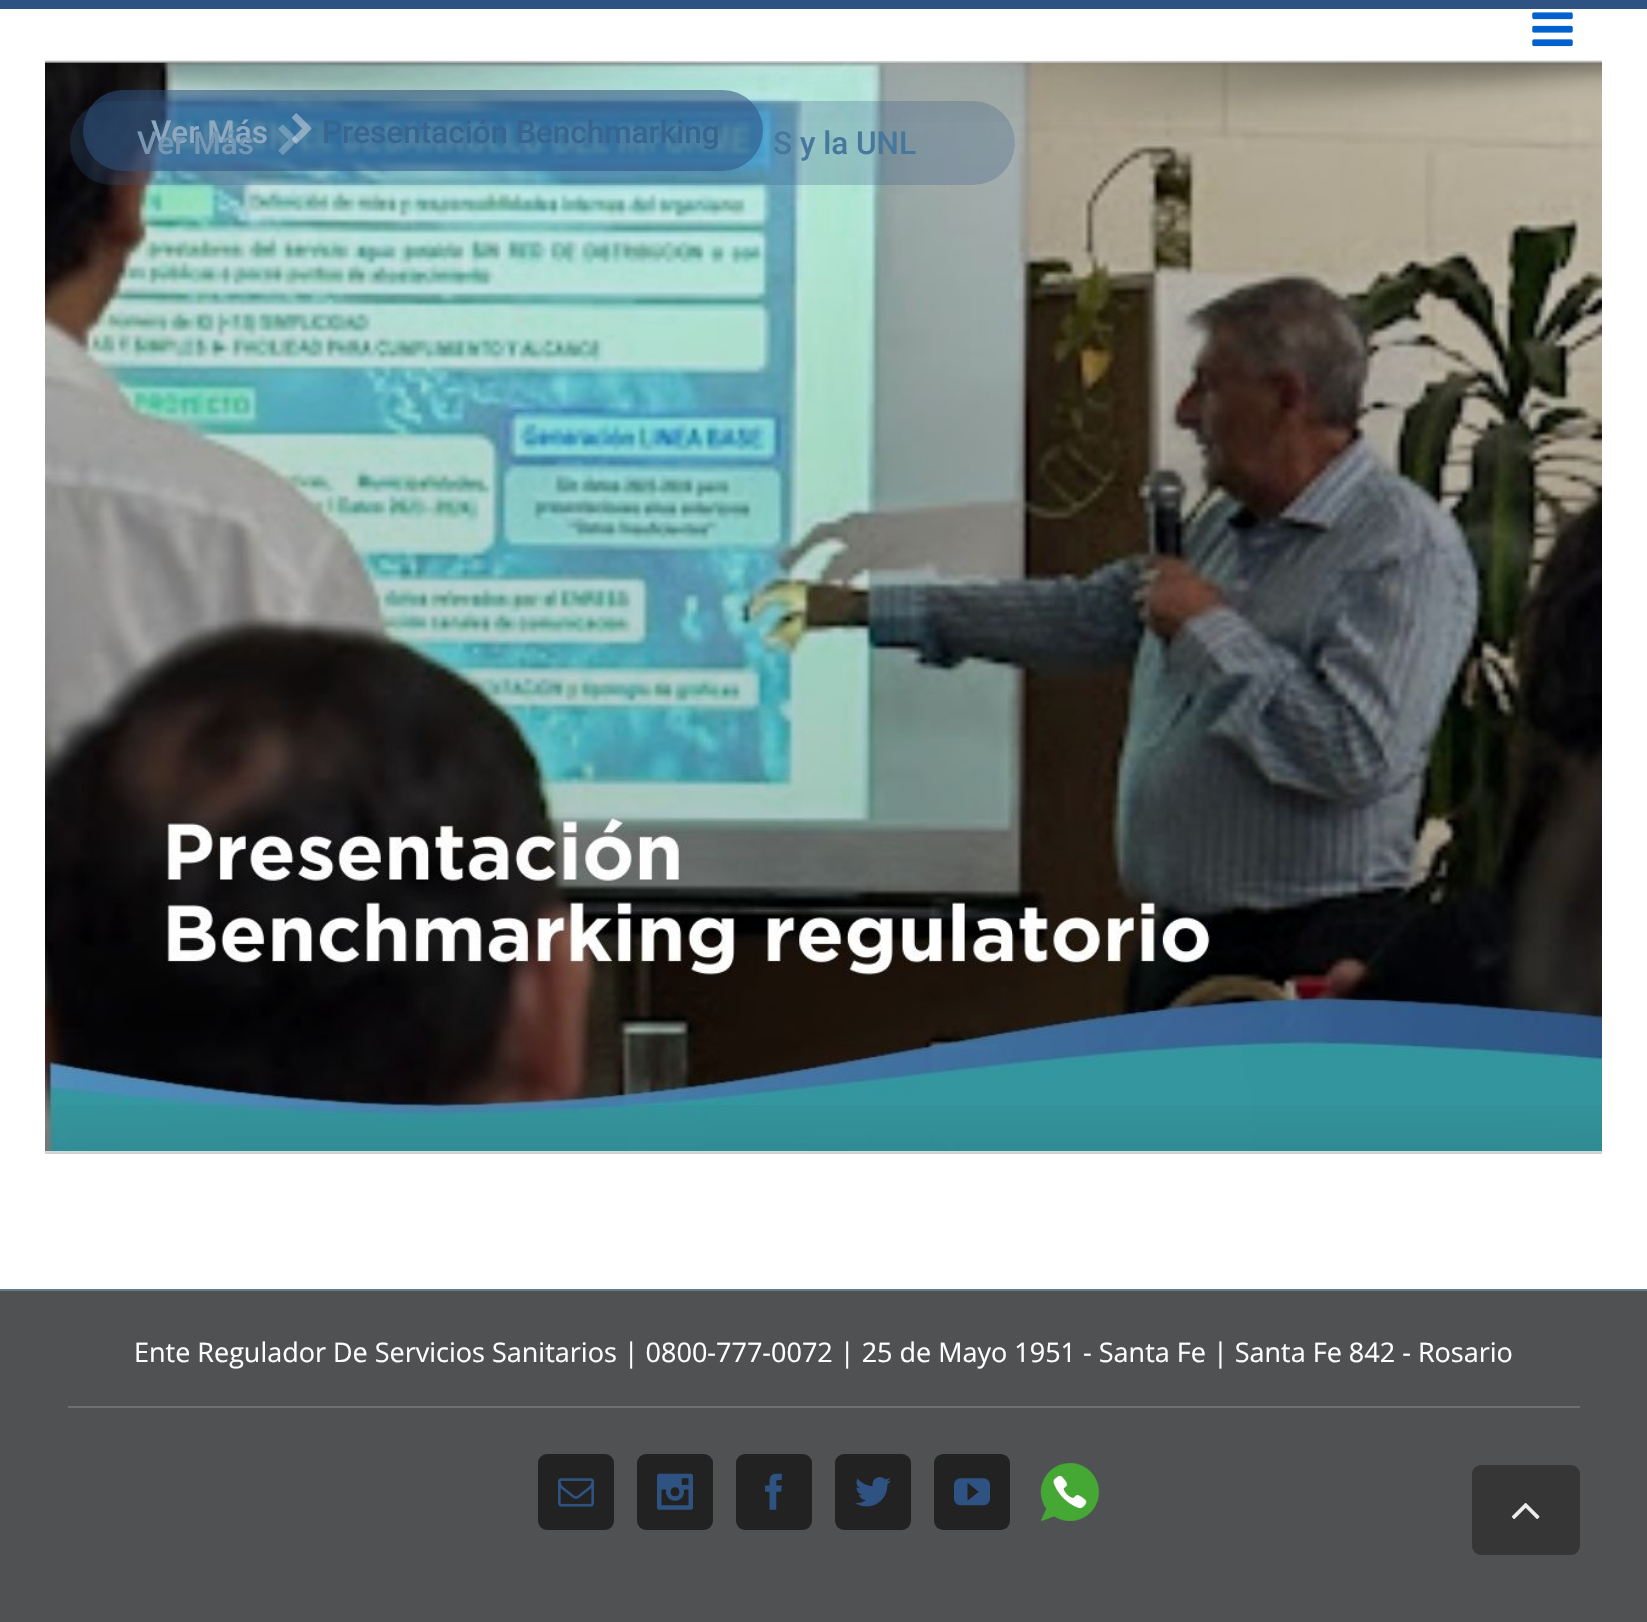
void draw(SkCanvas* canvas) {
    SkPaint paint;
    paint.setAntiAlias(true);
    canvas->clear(0xFFFFFFFF);
    paint.setColor(0xFF2E5282);
    canvas->drawRect(SkRect::MakeXYWH(0, 0, 1647, 9), paint);
    canvas->drawImageRect(SkImages::DeferredFromEncodedData(SkData::MakeFromFileName("img1.png")), SkRect::MakeXYWH(1532, 12, 41, 35), SkSamplingOptions());
    paint.setColor(0xFFD2D3D4);
    canvas->drawRect(SkRect::MakeXYWH(45, 61, 1557, 2), paint);
    canvas->drawRect(SkRect::MakeXYWH(45, 1152, 1557, 2), paint);
    canvas->drawImageRect(SkImages::DeferredFromEncodedData(SkData::MakeFromFileName("img3.png")), SkRect::MakeXYWH(45, 62, 1557, 1090), SkSamplingOptions());
    paint.setColor(0x8C2E5282);
    canvas->drawRoundRect(SkRect::MakeXYWH(83, 90, 680, 81), 40.5f, 40.5f, paint);
    SkFont font1(fontMgr->matchFamilyStyle("Roboto", SkFontStyle(500, SkFontStyle::kNormal_Width, SkFontStyle::kUpright_Slant)), 31.5f);
    font1.setSubpixel(true);
    paint.setColor(0xFFADC6D5);
    canvas->drawString("Ver Más", 151, 143, font1, paint);
    canvas->drawImageRect(SkImages::DeferredFromEncodedData(SkData::MakeFromFileName("img4.png")), SkRect::MakeXYWH(292, 113, 20, 31), SkSamplingOptions());
    paint.setColor(0xFF396A94);
    canvas->drawString("Presentación Benchmarking", 322, 143, font1, paint);
    paint.setColor(0x402E5282);
    canvas->drawRoundRect(SkRect::MakeXYWH(70, 101, 945, 84), 42, 42, paint);
    canvas->drawImageRect(SkImages::DeferredFromEncodedData(SkData::MakeFromFileName("img2.png")), SkRect::MakeXYWH(45, 60, 1557, 62), SkSamplingOptions());
    paint.setColor(0xFF7798B3);
    canvas->drawString("Ver Más", 137, 154, font1, paint);
    canvas->drawImageRect(SkImages::DeferredFromEncodedData(SkData::MakeFromFileName("img5.png")), SkRect::MakeXYWH(278, 124, 20, 31), SkSamplingOptions());
    paint.setColor(0xFF46779C);
    canvas->drawString("S y la UNL", 773, 154, font1, paint);
    canvas->drawImageRect(SkImages::DeferredFromEncodedData(SkData::MakeFromFileName("img6.png")), SkRect::MakeXYWH(45, 1105, 1557, 47), SkSamplingOptions());
    paint.setColor(0xFF505152);
    canvas->drawRect(SkRect::MakeXYWH(0, 1291, 1647, 331), paint);
    paint.setColor(0xFF607D8B);
    canvas->drawRect(SkRect::MakeXYWH(0, 1289, 1647, 2), paint);
    paint.setColor(0xFF6E6F70);
    canvas->drawRect(SkRect::MakeXYWH(68, 1406, 1512, 2), paint);
    SkFont font2(fontMgr->matchFamilyStyle("Open Sans", SkFontStyle::Normal()), 27);
    font2.setSubpixel(true);
    paint.setColor(0xFFFFFFFF);
    canvas->drawString("Ente Regulador De Servicios Sanitarios | 0800-777-0072 | 25 de Mayo 1951 - Santa Fe | Santa Fe 842 - Rosario", 134, 1362, font2, paint);
    paint.setColor(0xFF222222);
    canvas->drawRoundRect(SkRect::MakeXYWH(539, 1455, 74, 74), 8, 8, paint);
    paint.setStyle(SkPaint::kStroke_Style);
    paint.setStrokeWidth(2);
    canvas->drawRoundRect(SkRect::MakeXYWH(539, 1455, 74, 74), 8, 8, paint);
    canvas->drawImageRect(SkImages::DeferredFromEncodedData(SkData::MakeFromFileName("img7.png")), SkRect::MakeXYWH(558, 1478, 36, 29), SkSamplingOptions());
    paint.setStyle(SkPaint::kFill_Style);
    canvas->drawRoundRect(SkRect::MakeXYWH(638, 1455, 74, 74), 8, 8, paint);
    paint.setStyle(SkPaint::kStroke_Style);
    canvas->drawRoundRect(SkRect::MakeXYWH(638, 1455, 74, 74), 8, 8, paint);
    canvas->drawImageRect(SkImages::DeferredFromEncodedData(SkData::MakeFromFileName("img8.png")), SkRect::MakeXYWH(657, 1473, 36, 37), SkSamplingOptions());
    paint.setStyle(SkPaint::kFill_Style);
    canvas->drawRoundRect(SkRect::MakeXYWH(737, 1455, 74, 74), 8, 8, paint);
    paint.setStyle(SkPaint::kStroke_Style);
    canvas->drawRoundRect(SkRect::MakeXYWH(737, 1455, 74, 74), 8, 8, paint);
    canvas->drawImageRect(SkImages::DeferredFromEncodedData(SkData::MakeFromFileName("img9.png")), SkRect::MakeXYWH(765, 1473, 17, 37), SkSamplingOptions());
    paint.setStyle(SkPaint::kFill_Style);
    canvas->drawRoundRect(SkRect::MakeXYWH(836, 1455, 74, 74), 8, 8, paint);
    paint.setStyle(SkPaint::kStroke_Style);
    canvas->drawRoundRect(SkRect::MakeXYWH(836, 1455, 74, 74), 8, 8, paint);
    canvas->drawImageRect(SkImages::DeferredFromEncodedData(SkData::MakeFromFileName("img10.png")), SkRect::MakeXYWH(855, 1477, 36, 30), SkSamplingOptions());
    paint.setStyle(SkPaint::kFill_Style);
    canvas->drawRoundRect(SkRect::MakeXYWH(935, 1455, 74, 74), 8, 8, paint);
    paint.setStyle(SkPaint::kStroke_Style);
    canvas->drawRoundRect(SkRect::MakeXYWH(935, 1455, 74, 74), 8, 8, paint);
    canvas->drawImageRect(SkImages::DeferredFromEncodedData(SkData::MakeFromFileName("img11.png")), SkRect::MakeXYWH(954, 1478, 36, 28), SkSamplingOptions());
    canvas->drawImageRect(SkImages::DeferredFromEncodedData(SkData::MakeFromFileName("img12.png")), SkRect::MakeXYWH(1040, 1463, 60, 58), SkSamplingOptions());
    paint.setStyle(SkPaint::kFill_Style);
    paint.setColor(0xFF363636);
    canvas->drawRoundRect(SkRect::MakeXYWH(1472, 1465, 108, 90), 9, 9, paint);
    canvas->drawImageRect(SkImages::DeferredFromEncodedData(SkData::MakeFromFileName("img13.png")), SkRect::MakeXYWH(1511, 1503, 29, 16), SkSamplingOptions());
}
